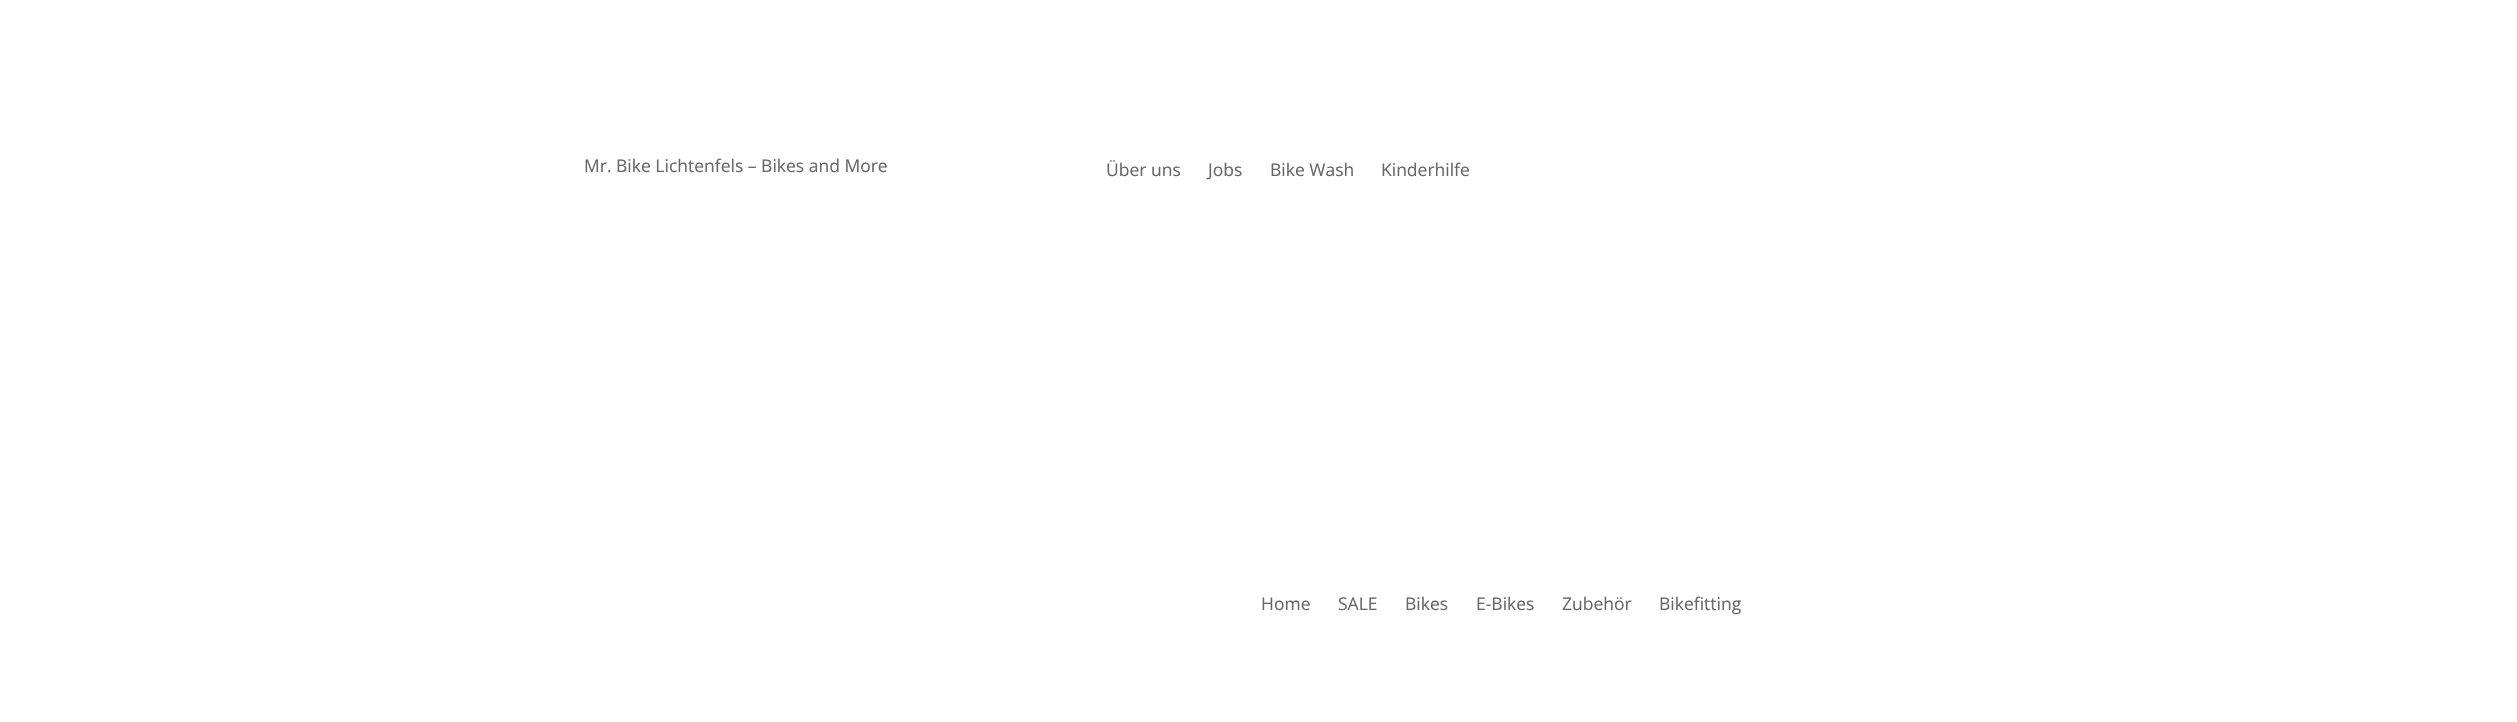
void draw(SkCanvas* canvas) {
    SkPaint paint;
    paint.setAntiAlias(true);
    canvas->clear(0xFFFFFFFF);
    SkFont font1(fontMgr->matchFamilyStyle("Open Sans", SkFontStyle::Normal()), 17.5f);
    font1.setSubpixel(true);
    paint.setColor(0xFF666666);
    canvas->drawString("Mr. Bike Lichtenfels – Bikes and More", 584, 172, font1, paint);
    canvas->drawString("Über uns", 1106, 176, font1, paint);
    canvas->drawString("Jobs", 1208, 176, font1, paint);
    canvas->drawString("Bike Wash", 1270, 176, font1, paint);
    canvas->drawString("Kinderhilfe", 1381, 176, font1, paint);
    canvas->drawString("Home", 1261, 610, font1, paint);
    canvas->drawString("SALE", 1338, 610, font1, paint);
    canvas->drawString("Bikes", 1405, 610, font1, paint);
    canvas->drawString("E-Bikes", 1476, 610, font1, paint);
    canvas->drawString("Zubehör", 1562, 610, font1, paint);
    canvas->drawString("Bikefitting", 1659, 610, font1, paint);
}
